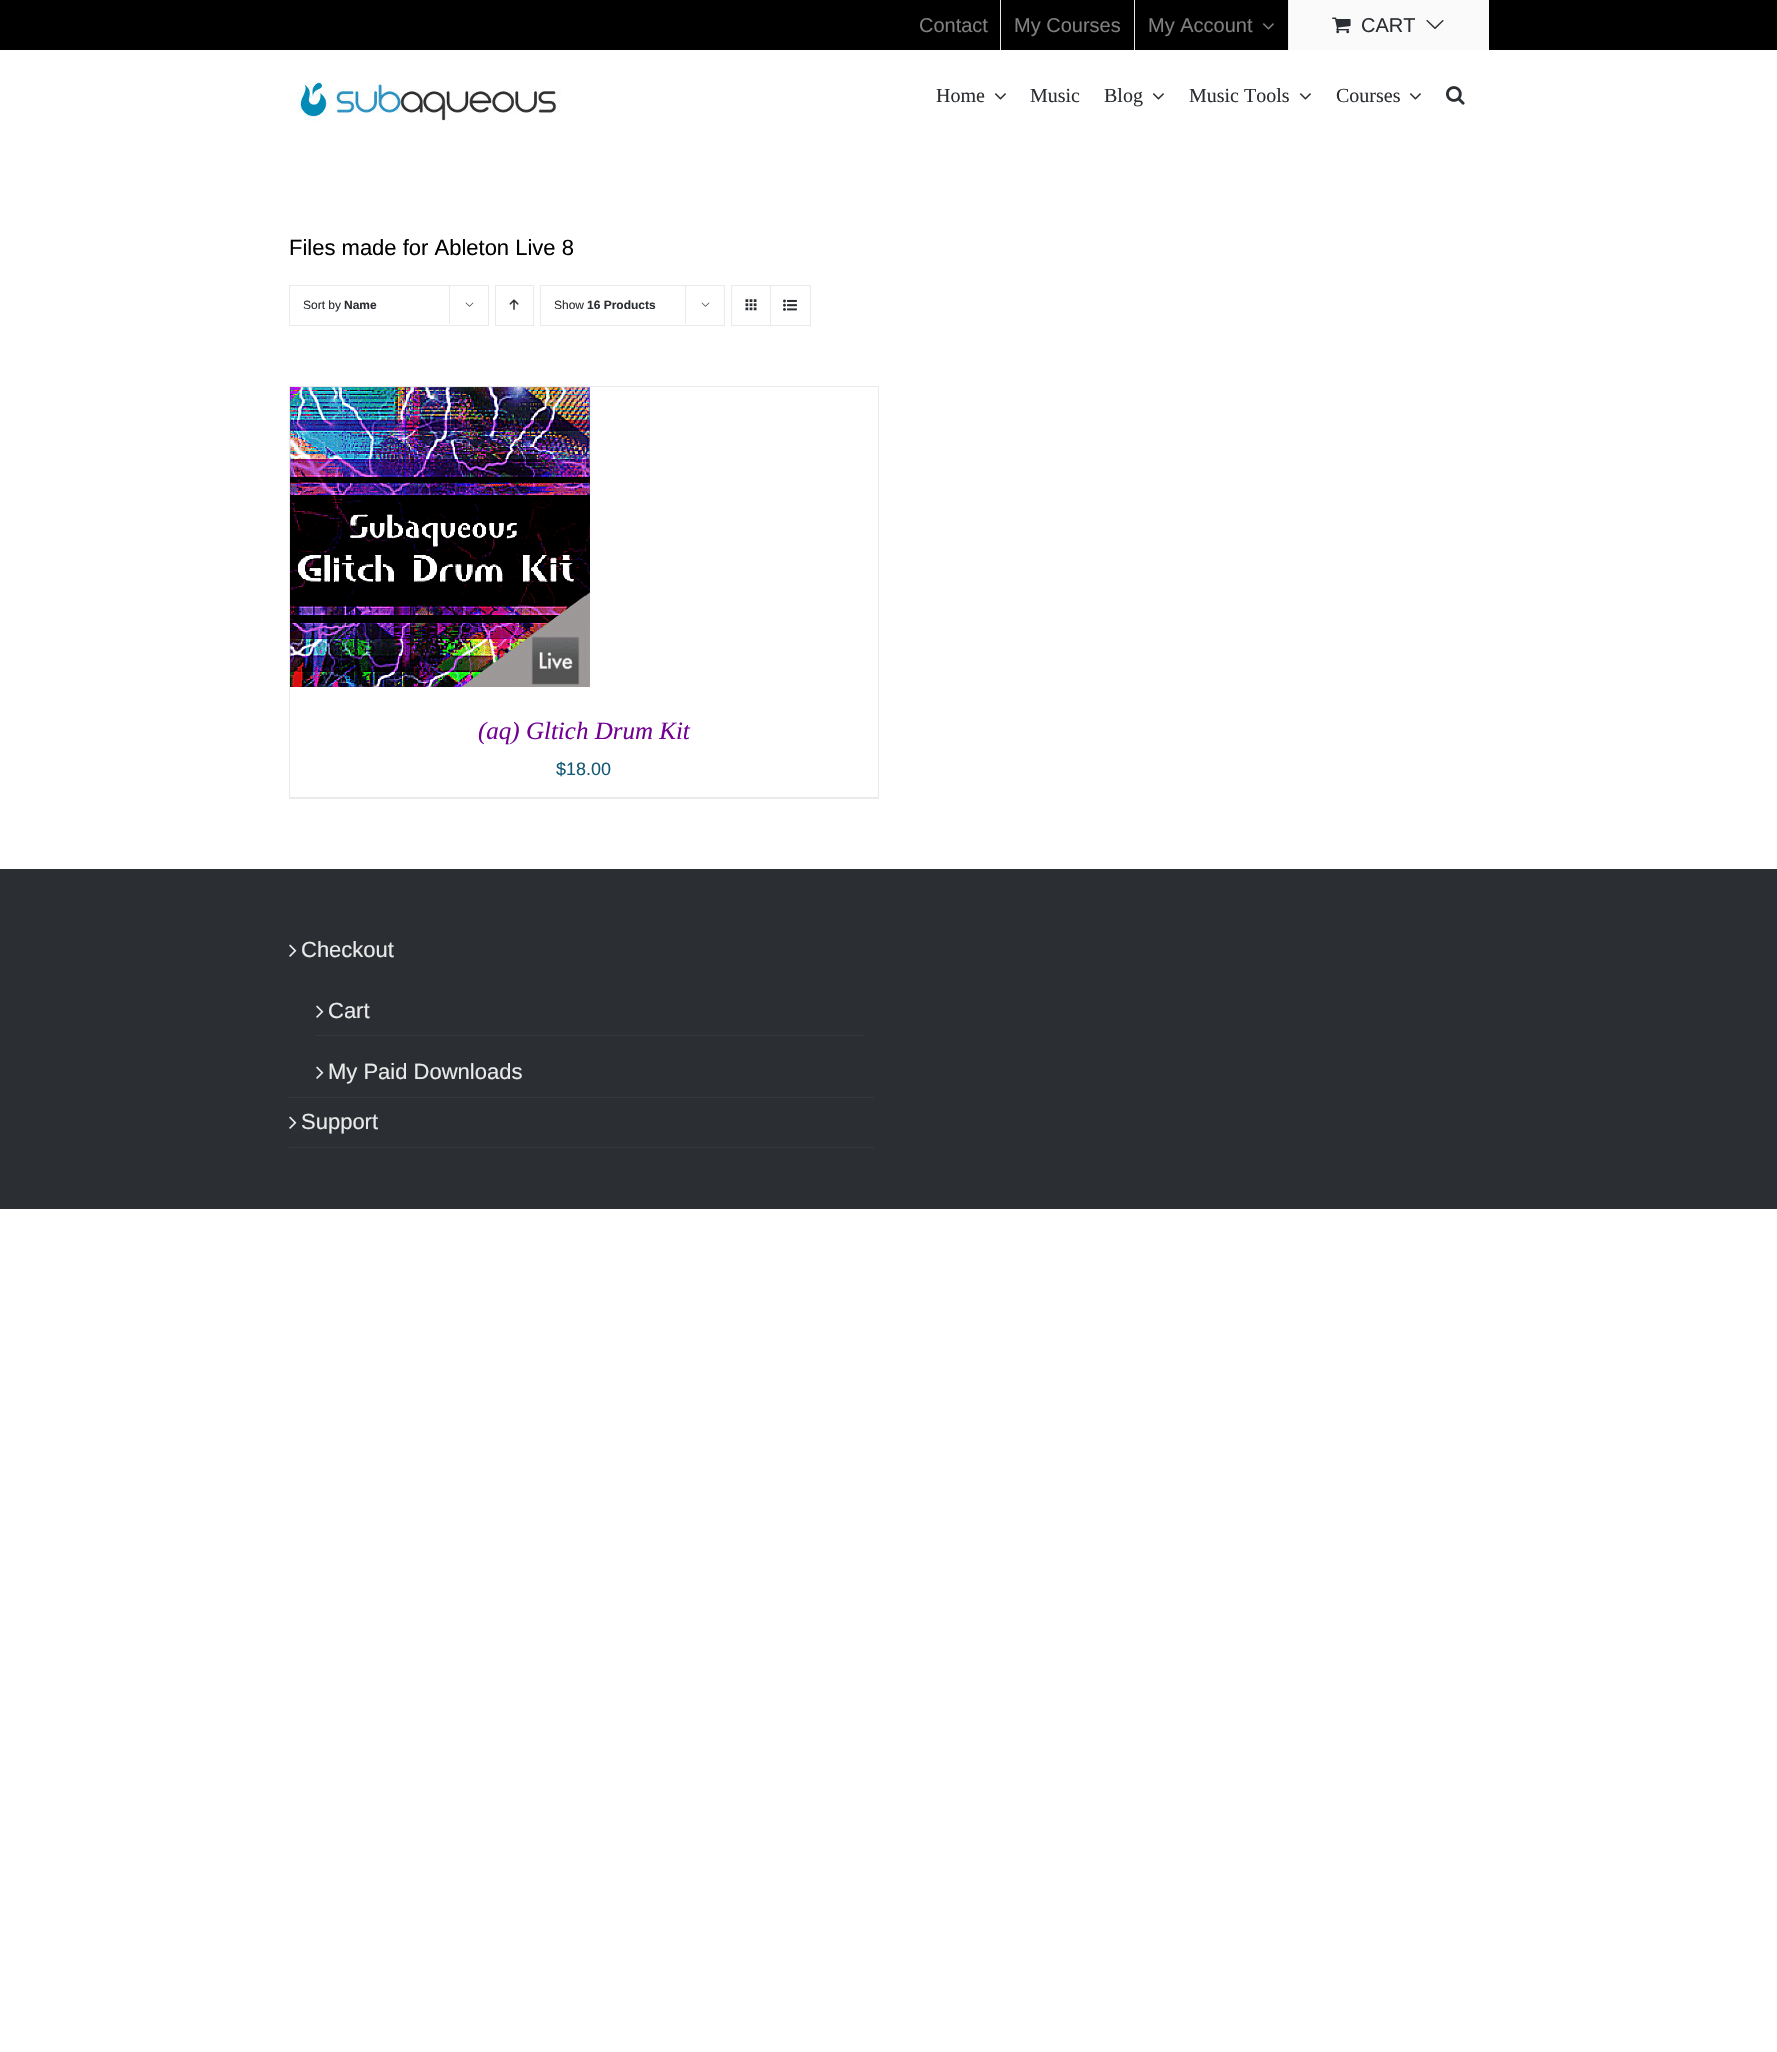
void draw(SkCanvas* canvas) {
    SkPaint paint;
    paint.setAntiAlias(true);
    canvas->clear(0xFFFFFFFF);
    paint.setColor(0xFF000000);
    canvas->drawRect(SkRect::MakeXYWH(0, 0, 1777, 50), paint);
    SkFont font1(fontMgr->matchFamilyStyle("Liberation Sans", SkFontStyle::Normal()), 20);
    font1.setSubpixel(true);
    paint.setColor(0xFF808080);
    canvas->drawString("Contact", 919, 32, font1, paint);
    paint.setColor(0xFFEAEAEA);
    canvas->drawRect(SkRect::MakeXYWH(1000, 0, 1, 50), paint);
    paint.setColor(0xFF808080);
    canvas->drawString("My Courses", 1014, 32, font1, paint);
    paint.setColor(0xFFEAEAEA);
    canvas->drawRect(SkRect::MakeXYWH(1134, 0, 1, 50), paint);
    paint.setColor(0xFF808080);
    canvas->drawString("My Account", 1148, 32, font1, paint);
    canvas->drawImageRect(SkImages::DeferredFromEncodedData(SkData::MakeFromFileName("img1.png")), SkRect::MakeXYWH(1262, 23, 12, 7), SkSamplingOptions());
    paint.setColor(0xFFEAEAEA);
    canvas->drawRect(SkRect::MakeXYWH(1288, 0, 1, 50), paint);
    paint.setColor(0xFFFAFAFA);
    canvas->drawRect(SkRect::MakeXYWH(1289, 0, 200, 50), paint);
    canvas->drawImageRect(SkImages::DeferredFromEncodedData(SkData::MakeFromFileName("img2.png")), SkRect::MakeXYWH(1332, 17, 19, 17), SkSamplingOptions());
    paint.setColor(0xFF2B2E32);
    canvas->drawString("CART", 1361, 32, font1, paint);
    canvas->drawImageRect(SkImages::DeferredFromEncodedData(SkData::MakeFromFileName("img3.png")), SkRect::MakeXYWH(1426, 20, 18, 9), SkSamplingOptions());
    canvas->drawImageRect(SkImages::DeferredFromEncodedData(SkData::MakeFromFileName("img4.png")), SkRect::MakeXYWH(297, 81, 264, 40), SkSamplingOptions());
    SkFont font2(fontMgr->matchFamilyStyle("Liberation Serif", SkFontStyle::Normal()), 20);
    font2.setSubpixel(true);
    canvas->drawString("Home", 936, 102, font2, paint);
    canvas->drawImageRect(SkImages::DeferredFromEncodedData(SkData::MakeFromFileName("img5.png")), SkRect::MakeXYWH(994, 93, 12, 7), SkSamplingOptions());
    canvas->drawString("Music", 1030, 102, font2, paint);
    canvas->drawString("Blog", 1104, 102, font2, paint);
    canvas->drawImageRect(SkImages::DeferredFromEncodedData(SkData::MakeFromFileName("img5.png")), SkRect::MakeXYWH(1152, 93, 12, 7), SkSamplingOptions());
    canvas->drawString("Music Tools", 1189, 102, font2, paint);
    canvas->drawImageRect(SkImages::DeferredFromEncodedData(SkData::MakeFromFileName("img5.png")), SkRect::MakeXYWH(1299, 93, 12, 7), SkSamplingOptions());
    canvas->drawString("Courses", 1336, 102, font2, paint);
    canvas->drawImageRect(SkImages::DeferredFromEncodedData(SkData::MakeFromFileName("img5.png")), SkRect::MakeXYWH(1409, 93, 12, 7), SkSamplingOptions());
    canvas->drawImageRect(SkImages::DeferredFromEncodedData(SkData::MakeFromFileName("img6.png")), SkRect::MakeXYWH(1446, 86, 19, 19), SkSamplingOptions());
    SkFont font3(fontMgr->matchFamilyStyle("Liberation Sans", SkFontStyle::Normal()), 22);
    font3.setSubpixel(true);
    paint.setColor(0xFF000000);
    canvas->drawString("Files made for Ableton Live 8", 289, 255, font3, paint);
    paint.setStyle(SkPaint::kStroke_Style);
    paint.setStrokeWidth(1);
    paint.setColor(0xFFEAEAEA);
    canvas->drawRect(SkRect::MakeXYWH(289.5f, 285.5f, 199, 40), paint);
    SkFont font4(fontMgr->matchFamilyStyle("Liberation Sans", SkFontStyle::Normal()), 12);
    font4.setSubpixel(true);
    paint.setStyle(SkPaint::kFill_Style);
    paint.setColor(0xFF2B2E32);
    canvas->drawString("Sort by", 303, 309, font4, paint);
    SkFont font5(fontMgr->matchFamilyStyle("Liberation Sans", SkFontStyle::Bold()), 12);
    font5.setSubpixel(true);
    canvas->drawString("Name", 344, 309, font5, paint);
    paint.setColor(0xFFEAEAEA);
    canvas->drawRect(SkRect::MakeXYWH(449, 285, 1, 39), paint);
    canvas->drawImageRect(SkImages::DeferredFromEncodedData(SkData::MakeFromFileName("img7.png")), SkRect::MakeXYWH(465, 302, 9, 5), SkSamplingOptions());
    paint.setStyle(SkPaint::kStroke_Style);
    canvas->drawRect(SkRect::MakeXYWH(495.5f, 285.5f, 38, 40), paint);
    canvas->drawImageRect(SkImages::DeferredFromEncodedData(SkData::MakeFromFileName("img8.png")), SkRect::MakeXYWH(509, 299, 10, 11), SkSamplingOptions());
    canvas->drawRect(SkRect::MakeXYWH(540.5f, 285.5f, 184, 40), paint);
    paint.setStyle(SkPaint::kFill_Style);
    paint.setColor(0xFF2B2E32);
    canvas->drawString("Show", 554, 309, font4, paint);
    canvas->drawString("16 Products", 587, 309, font5, paint);
    paint.setColor(0xFFEAEAEA);
    canvas->drawRect(SkRect::MakeXYWH(685, 285, 1, 39), paint);
    canvas->drawImageRect(SkImages::DeferredFromEncodedData(SkData::MakeFromFileName("img7.png")), SkRect::MakeXYWH(701, 302, 9, 5), SkSamplingOptions());
    paint.setStyle(SkPaint::kStroke_Style);
    canvas->drawRect(SkRect::MakeXYWH(731.5f, 285.5f, 79, 40), paint);
    paint.setStyle(SkPaint::kFill_Style);
    canvas->drawRect(SkRect::MakeXYWH(770, 286, 1, 39), paint);
    canvas->drawImageRect(SkImages::DeferredFromEncodedData(SkData::MakeFromFileName("img9.png")), SkRect::MakeXYWH(745, 299, 12, 12), SkSamplingOptions());
    canvas->drawImageRect(SkImages::DeferredFromEncodedData(SkData::MakeFromFileName("img10.png")), SkRect::MakeXYWH(783, 299, 14, 12), SkSamplingOptions());
    canvas->drawRect(SkRect::MakeXYWH(289, 386, 590, 1), paint);
    canvas->drawRect(SkRect::MakeXYWH(878, 386, 1, 413), paint);
    canvas->drawRect(SkRect::MakeXYWH(289, 797, 590, 2), paint);
    canvas->drawRect(SkRect::MakeXYWH(289, 386, 1, 413), paint);
    canvas->drawImageRect(SkImages::DeferredFromEncodedData(SkData::MakeFromFileName("img11.png")), SkRect::MakeXYWH(290, 387, 300, 300), SkSamplingOptions());
    SkFont font6(fontMgr->matchFamilyStyle("Liberation Serif", SkFontStyle::Italic()), 25);
    font6.setSubpixel(true);
    paint.setColor(0xFF710093);
    canvas->drawString("(aq) Gltich Drum Kit", 478, 739, font6, paint);
    SkFont font7(fontMgr->matchFamilyStyle("Liberation Sans", SkFontStyle::Normal()), 18);
    font7.setSubpixel(true);
    paint.setColor(0xFF135976);
    canvas->drawString("$18.00", 556, 775, font7, paint);
    paint.setColor(0xFF2B2E32);
    canvas->drawRect(SkRect::MakeXYWH(0, 869, 1777, 340), paint);
    paint.setColor(0xFF35383C);
    canvas->drawRect(SkRect::MakeXYWH(289, 1097, 585, 1), paint);
    canvas->drawImageRect(SkImages::DeferredFromEncodedData(SkData::MakeFromFileName("img12.png")), SkRect::MakeXYWH(289, 944, 8, 13), SkSamplingOptions());
    paint.setColor(0xFFEAEAEA);
    canvas->drawString("Checkout", 301, 957, font3, paint);
    paint.setColor(0xFF35383C);
    canvas->drawRect(SkRect::MakeXYWH(316, 1035, 548, 1), paint);
    canvas->drawImageRect(SkImages::DeferredFromEncodedData(SkData::MakeFromFileName("img12.png")), SkRect::MakeXYWH(316, 1005, 8, 13), SkSamplingOptions());
    paint.setColor(0xFFEAEAEA);
    canvas->drawString("Cart", 328, 1018, font3, paint);
    canvas->drawImageRect(SkImages::DeferredFromEncodedData(SkData::MakeFromFileName("img12.png")), SkRect::MakeXYWH(316, 1066, 8, 13), SkSamplingOptions());
    canvas->drawString("My Paid Downloads", 328, 1079, font3, paint);
    paint.setColor(0xFF35383C);
    canvas->drawRect(SkRect::MakeXYWH(289, 1147, 585, 1), paint);
    canvas->drawImageRect(SkImages::DeferredFromEncodedData(SkData::MakeFromFileName("img12.png")), SkRect::MakeXYWH(289, 1116, 8, 13), SkSamplingOptions());
    paint.setColor(0xFFEAEAEA);
    canvas->drawString("Support", 301, 1129, font3, paint);
}
